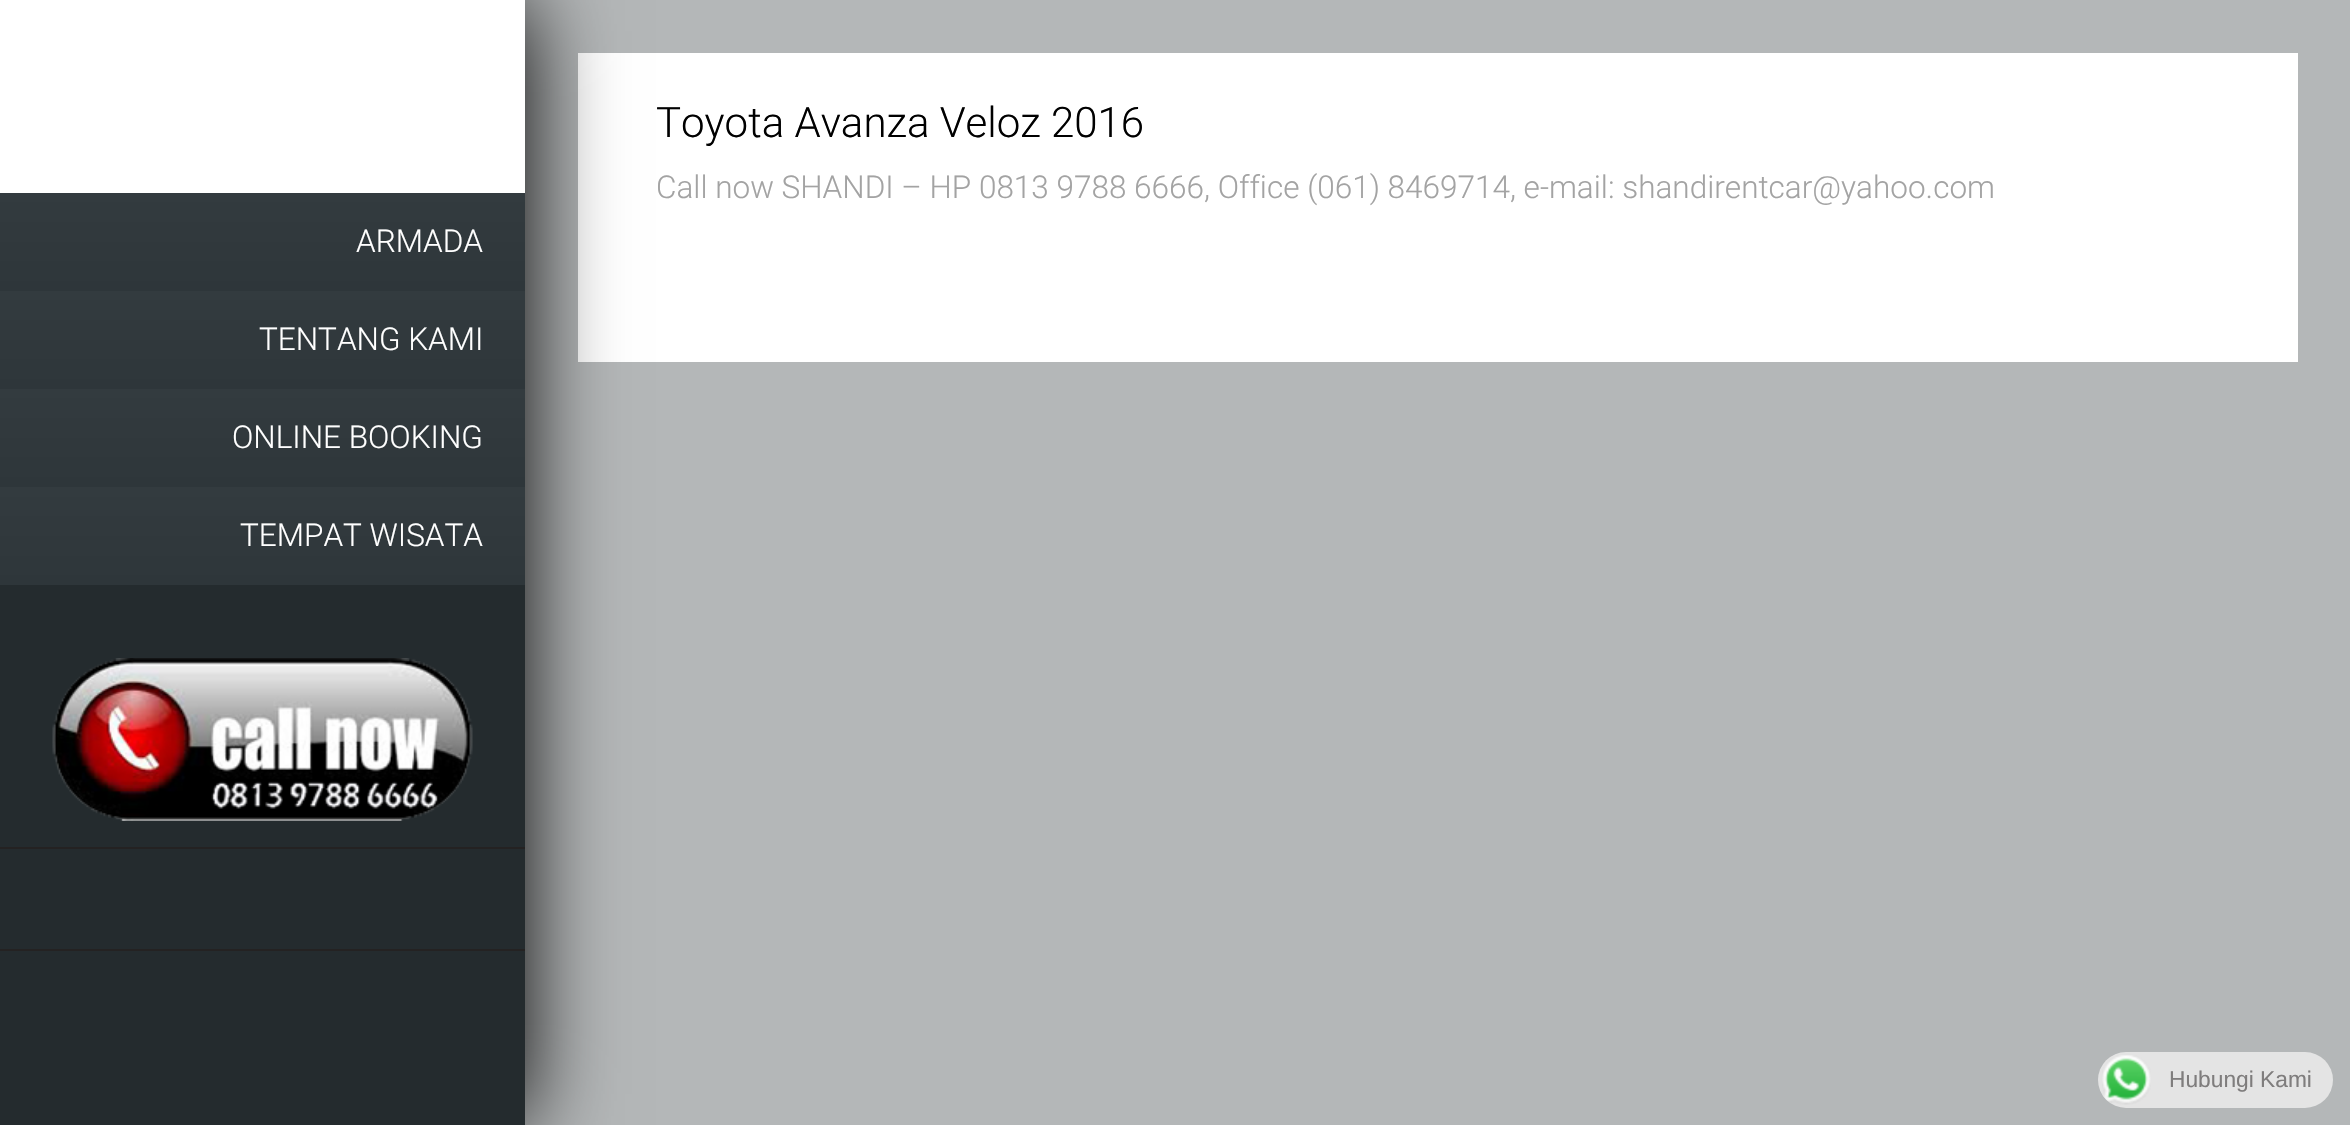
void draw(SkCanvas* canvas) {
    SkPaint paint;
    paint.setAntiAlias(true);
    canvas->clear(0xFFB4B7B8);
    paint.setColor(0xFFFFFFFF);
    canvas->drawRect(SkRect::MakeXYWH(578, 53, 1720, 309), paint);
    SkFont font1(fontMgr->matchFamilyStyle("Roboto", SkFontStyle(300, SkFontStyle::kNormal_Width, SkFontStyle::kUpright_Slant)), 42);
    font1.setSubpixel(true);
    paint.setColor(0xFF000000);
    canvas->drawString("Toyota Avanza Veloz 2016", 656, 137, font1, paint);
    SkFont font2(fontMgr->matchFamilyStyle("Roboto", SkFontStyle(300, SkFontStyle::kNormal_Width, SkFontStyle::kUpright_Slant)), 31.5f);
    font2.setSubpixel(true);
    paint.setColor(0xFFA3A3A3);
    canvas->drawString("Call now SHANDI – HP 0813 9788 6666, Office (061) 8469714, e-mail: shandirentcar@yahoo.com", 656, 198, font2, paint);
    paint.setColor(0xFF000000);
    paint.setMaskFilter(SkMaskFilter::MakeBlur(kNormal_SkBlurStyle, 44));
    canvas->drawRect(SkRect::MakeXYWH(0, 0, 525, 1125), paint);
    paint.setMaskFilter(nullptr);
    paint.setColor(0xFF242B2E);
    canvas->drawRect(SkRect::MakeXYWH(0, 585, 525, 540), paint);
    paint.setColor(0xFFFFFFFF);
    canvas->drawRect(SkRect::MakeXYWH(0, 0, 525, 193), paint);
    {
        const SkColor colors[] = {0xFF333B3F, 0xFF2E363A};
        const float stops[] = {0, 1};
        const SkPoint ends[] = {{263, 192}, {263, 291}};
        paint.setShader(SkGradientShader::MakeLinear(ends, colors, stops, 2, SkTileMode::kClamp));
        paint.setAlpha(255);
    }
    canvas->drawRect(SkRect::MakeXYWH(0, 193, 525, 98), paint);
    paint.setShader(nullptr);
    paint.setColor(0xFFFFFFFF);
    canvas->drawString("ARMADA", 356, 252, font2, paint);
    {
        const SkColor colors[] = {0xFF333B3F, 0xFF2E363A};
        const float stops[] = {0, 1};
        const SkPoint ends[] = {{263, 290}, {263, 389}};
        paint.setShader(SkGradientShader::MakeLinear(ends, colors, stops, 2, SkTileMode::kClamp));
        paint.setAlpha(255);
    }
    canvas->drawRect(SkRect::MakeXYWH(0, 291, 525, 98), paint);
    paint.setShader(nullptr);
    paint.setColor(0xFFFFFFFF);
    canvas->drawString("TENTANG KAMI", 259, 350, font2, paint);
    {
        const SkColor colors[] = {0xFF333B3F, 0xFF2E363A};
        const float stops[] = {0, 1};
        const SkPoint ends[] = {{263, 388}, {263, 487}};
        paint.setShader(SkGradientShader::MakeLinear(ends, colors, stops, 2, SkTileMode::kClamp));
        paint.setAlpha(255);
    }
    canvas->drawRect(SkRect::MakeXYWH(0, 389, 525, 98), paint);
    paint.setShader(nullptr);
    paint.setColor(0xFFFFFFFF);
    canvas->drawString("ONLINE BOOKING", 232, 448, font2, paint);
    {
        const SkColor colors[] = {0xFF333B3F, 0xFF2E363A};
        const float stops[] = {0, 1};
        const SkPoint ends[] = {{263, 487}, {263, 585}};
        paint.setShader(SkGradientShader::MakeLinear(ends, colors, stops, 2, SkTileMode::kClamp));
        paint.setAlpha(255);
    }
    canvas->drawRect(SkRect::MakeXYWH(0, 487, 525, 98), paint);
    paint.setShader(nullptr);
    paint.setColor(0xFFFFFFFF);
    canvas->drawString("TEMPAT WISATA", 240, 546, font2, paint);
    paint.setColor(0xFF242222);
    canvas->drawRect(SkRect::MakeXYWH(0, 847, 525, 2), paint);
    canvas->drawImageRect(SkImages::DeferredFromEncodedData(SkData::MakeFromFileName("img1.png")), SkRect::MakeXYWH(52, 658, 421, 163), SkSamplingOptions());
    canvas->drawRect(SkRect::MakeXYWH(0, 949, 525, 2), paint);
    paint.setColor(0xFFE4E4E4);
    canvas->drawRoundRect(SkRect::MakeXYWH(2098, 1052, 235, 56), 28, 28, paint);
    canvas->drawImageRect(SkImages::DeferredFromEncodedData(SkData::MakeFromFileName("img2.png")), SkRect::MakeXYWH(2102, 1055, 49, 50), SkSamplingOptions());
    SkFont font3(fontMgr->matchFamilyStyle("Liberation Sans", SkFontStyle::Normal()), 22.75f);
    font3.setSubpixel(true);
    paint.setColor(0xFF7F7D7D);
    canvas->drawString("Hubungi Kami", 2169, 1087, font3, paint);
}
